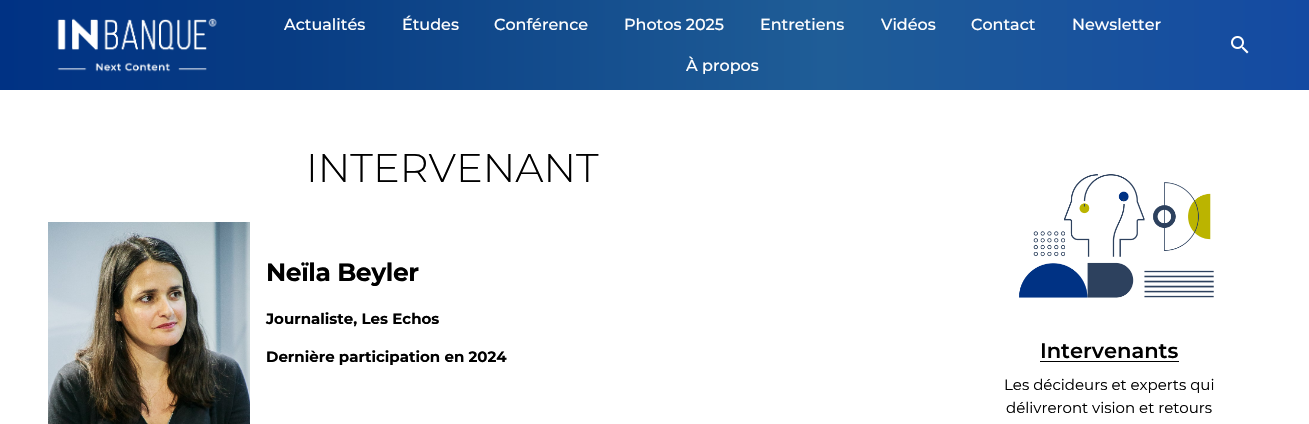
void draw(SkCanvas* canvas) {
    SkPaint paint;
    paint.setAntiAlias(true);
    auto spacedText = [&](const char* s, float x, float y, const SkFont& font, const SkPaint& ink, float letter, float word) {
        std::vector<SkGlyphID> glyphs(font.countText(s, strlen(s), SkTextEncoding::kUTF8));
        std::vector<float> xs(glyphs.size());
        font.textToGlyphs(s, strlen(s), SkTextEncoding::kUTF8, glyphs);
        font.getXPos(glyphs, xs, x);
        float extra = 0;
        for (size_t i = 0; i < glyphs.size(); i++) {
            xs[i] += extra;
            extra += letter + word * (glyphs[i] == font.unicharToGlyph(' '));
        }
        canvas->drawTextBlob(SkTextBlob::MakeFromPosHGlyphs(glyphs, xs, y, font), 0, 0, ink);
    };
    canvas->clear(0xFFFFFFFF);
    {
        const SkColor colors[] = {0xFF003284, 0xFF083C83, 0xFF1F5D97, 0xFF144AA2};
        const float stops[] = {0, 0.22f, 0.63f, 1};
        const SkPoint ends[] = {{0, 45}, {1309, 45}};
        paint.setShader(SkGradientShader::MakeLinear(ends, colors, stops, 4, SkTileMode::kClamp));
        paint.setAlpha(255);
    }
    canvas->drawRect(SkRect::MakeXYWH(0, 0, 1309, 90), paint);
    canvas->drawImageRect(SkImages::DeferredFromEncodedData(SkData::MakeFromFileName("img1.png")), SkRect::MakeXYWH(57, 18, 160, 54), SkSamplingOptions());
    SkFont font1(fontMgr->matchFamilyStyle("Montserrat", SkFontStyle(500, SkFontStyle::kNormal_Width, SkFontStyle::kUpright_Slant)), 16);
    font1.setSubpixel(true);
    paint.setShader(nullptr);
    paint.setColor(0xFFFFFFFF);
    canvas->drawString("Actualités", 284, 30, font1, paint);
    canvas->drawString("Études", 402, 30, font1, paint);
    canvas->drawString("Conférence", 494, 30, font1, paint);
    canvas->drawString("Photos 2025", 624, 30, font1, paint);
    canvas->drawString("Entretiens", 760, 30, font1, paint);
    canvas->drawString("Vidéos", 881, 30, font1, paint);
    canvas->drawString("Contact", 971, 30, font1, paint);
    canvas->drawString("Newsletter", 1072, 30, font1, paint);
    canvas->drawString("À propos", 686, 71, font1, paint);
    canvas->drawImageRect(SkImages::DeferredFromEncodedData(SkData::MakeFromFileName("img2.png")), SkRect::MakeXYWH(1231, 36, 18, 18), SkSamplingOptions());
    SkFont font2(fontMgr->matchFamilyStyle("Montserrat", SkFontStyle(300, SkFontStyle::kNormal_Width, SkFontStyle::kUpright_Slant)), 40);
    font2.setSubpixel(true);
    paint.setColor(0xFF000000);
    canvas->drawString("INTERVENANT", 306, 182, font2, paint);
    canvas->drawImageRect(SkImages::DeferredFromEncodedData(SkData::MakeFromFileName("img3.png")), SkRect::MakeXYWH(48, 222, 202, 202), SkSamplingOptions());
    SkFont font3(fontMgr->matchFamilyStyle("Montserrat", SkFontStyle::Bold()), 25);
    font3.setSubpixel(true);
    spacedText("Neïla Beyler", 266, 281, font3, paint, -0.4f, 0);
    SkFont font4(fontMgr->matchFamilyStyle("Montserrat", SkFontStyle::Bold()), 15);
    font4.setSubpixel(true);
    canvas->drawString("Journaliste, Les Echos", 266, 324, font4, paint);
    canvas->drawString("Dernière participation en 2024", 266, 362, font4, paint);
    canvas->drawImageRect(SkImages::DeferredFromEncodedData(SkData::MakeFromFileName("img4.png")), SkRect::MakeXYWH(1019, 174, 195, 124), SkSamplingOptions());
    SkFont font5(fontMgr->matchFamilyStyle("Montserrat", SkFontStyle(600, SkFontStyle::kNormal_Width, SkFontStyle::kUpright_Slant)), 21);
    font5.setSubpixel(true);
    canvas->drawString("Intervenants", 1040, 358, font5, paint);
    canvas->drawRect(SkRect::MakeXYWH(1040, 361, 139, 1), paint);
    SkFont font6(fontMgr->matchFamilyStyle("Montserrat", SkFontStyle::Normal()), 15);
    font6.setSubpixel(true);
    canvas->drawString("Les décideurs et experts qui", 1004, 390, font6, paint);
    canvas->drawString("délivreront vision et retours", 1006, 413, font6, paint);
}
